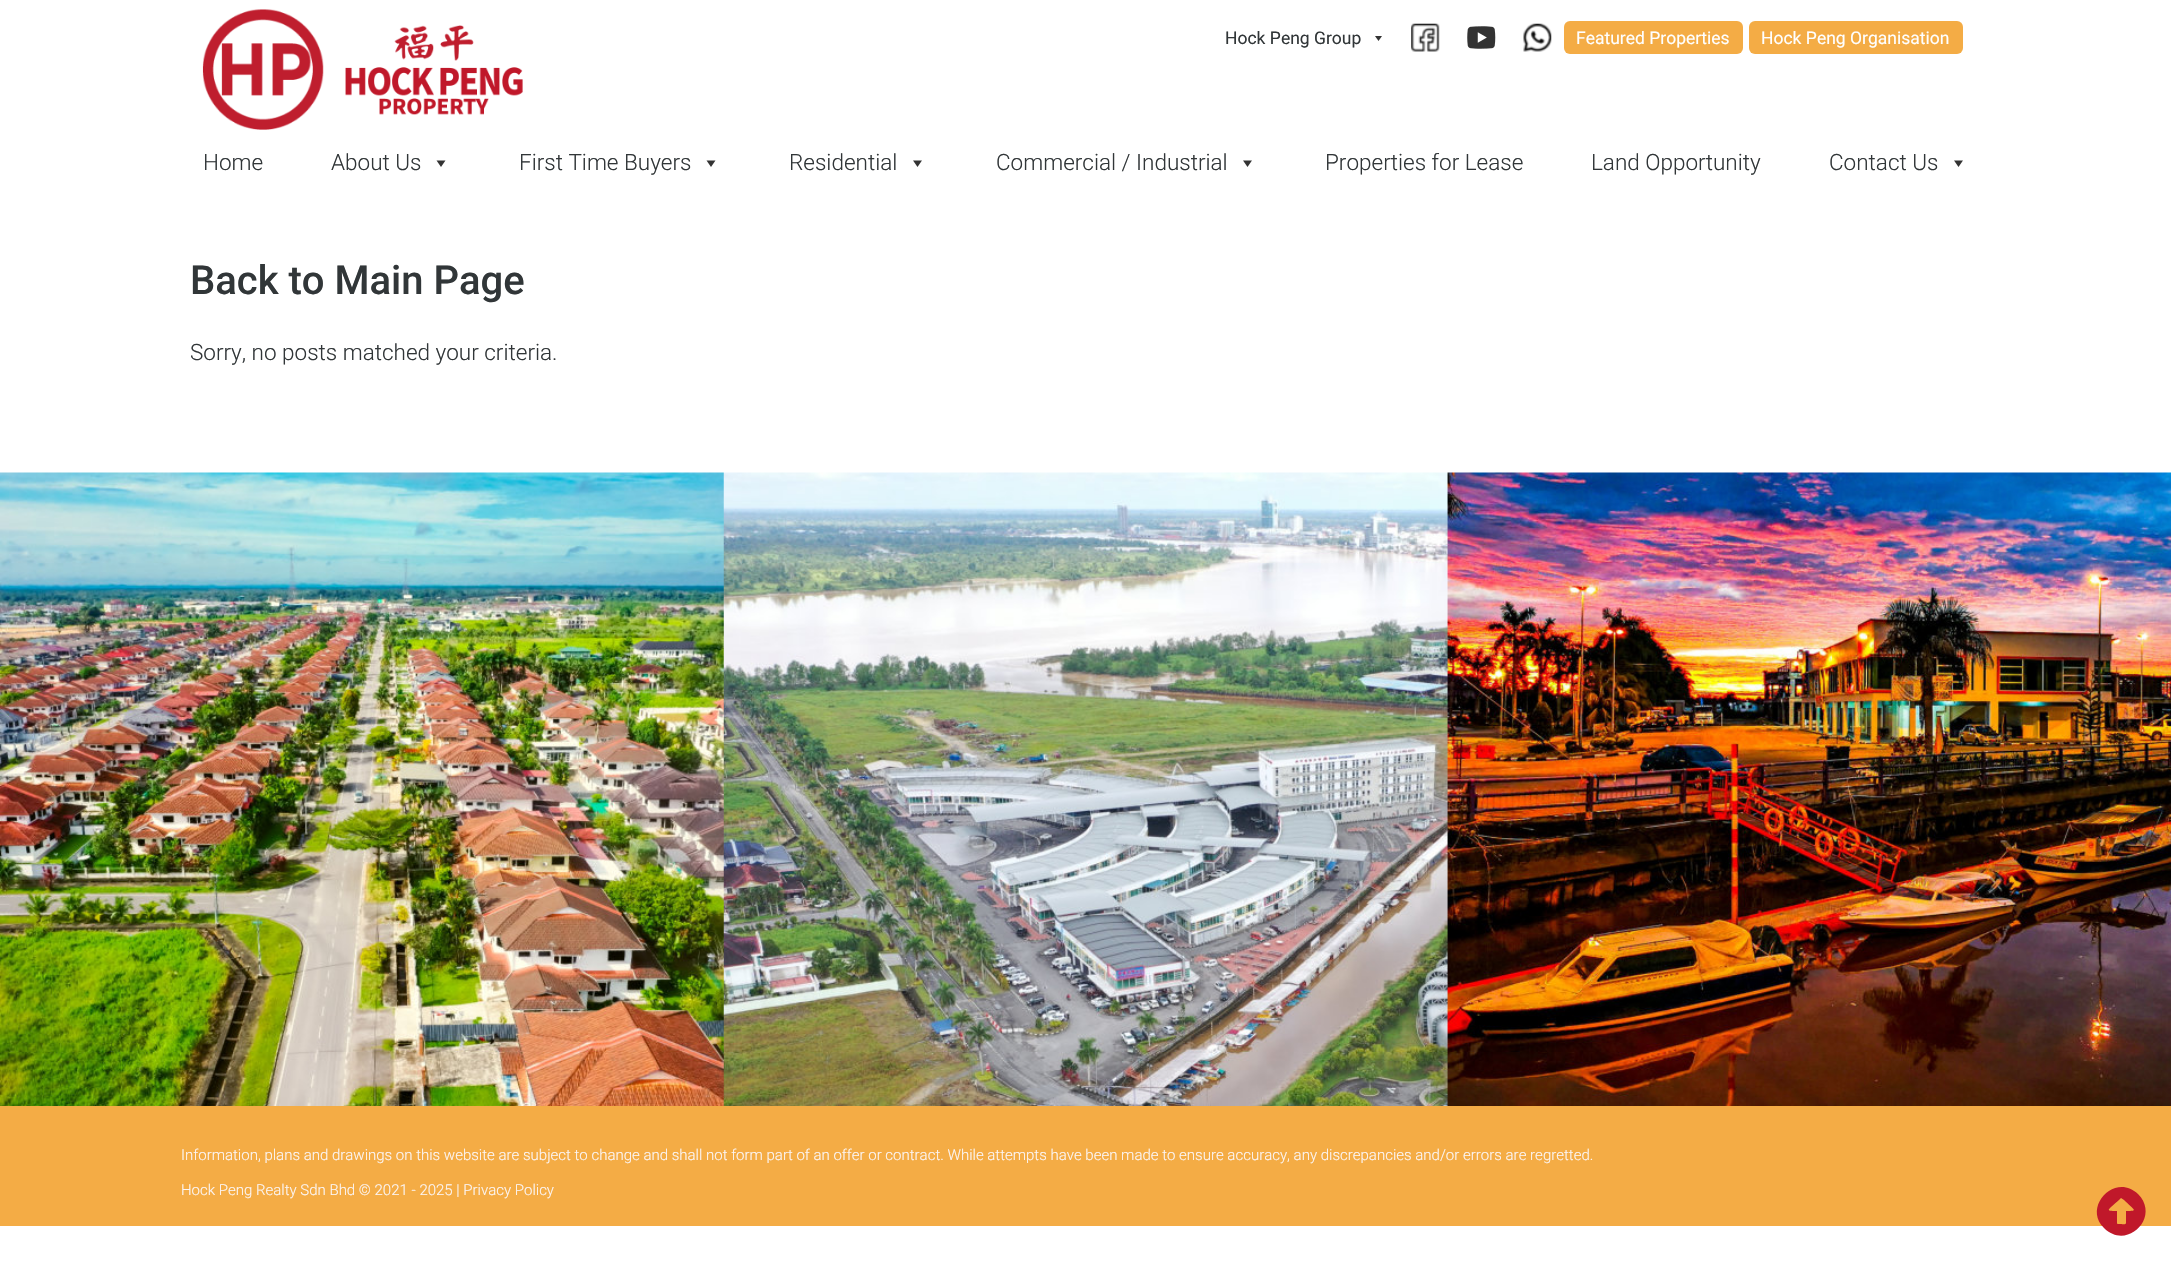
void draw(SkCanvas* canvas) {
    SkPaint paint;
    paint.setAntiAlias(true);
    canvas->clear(0xFFFFFFFF);
    canvas->drawImageRect(SkImages::DeferredFromEncodedData(SkData::MakeFromFileName("img1.png")), SkRect::MakeXYWH(202, 9, 321, 121), SkSamplingOptions());
    SkFont font1(fontMgr->matchFamilyStyle("Roboto", SkFontStyle::Normal()), 17.5f);
    font1.setSubpixel(true);
    paint.setColor(0xFF313638);
    canvas->drawString("Hock Peng Group", 1225, 44, font1, paint);
    paint.setColor(0xFF333333);
    canvas->drawPath(SkPathBuilder().moveTo(1382, 36).lineTo(1378.5f, 41).lineTo(1375, 36).close().detach(), paint);
    canvas->drawImageRect(SkImages::DeferredFromEncodedData(SkData::MakeFromFileName("img2.png")), SkRect::MakeXYWH(1411, 23, 29, 29), SkSamplingOptions());
    canvas->drawImageRect(SkImages::DeferredFromEncodedData(SkData::MakeFromFileName("img3.png")), SkRect::MakeXYWH(1467, 26, 29, 23), SkSamplingOptions());
    canvas->drawImageRect(SkImages::DeferredFromEncodedData(SkData::MakeFromFileName("img4.png")), SkRect::MakeXYWH(1523, 23, 29, 29), SkSamplingOptions());
    paint.setColor(0xFFF4AC45);
    canvas->drawRoundRect(SkRect::MakeXYWH(1564, 21, 179, 33), 6, 6, paint);
    paint.setColor(0xFFFFFFFF);
    canvas->drawString("Featured Properties", 1576, 44, font1, paint);
    paint.setColor(0xFFF4AC45);
    canvas->drawRoundRect(SkRect::MakeXYWH(1749, 21, 214, 33), 6, 6, paint);
    paint.setColor(0xFFFFFFFF);
    canvas->drawString("Hock Peng Organisation", 1761, 44, font1, paint);
    SkFont font2(fontMgr->matchFamilyStyle("Roboto", SkFontStyle(300, SkFontStyle::kNormal_Width, SkFontStyle::kUpright_Slant)), 22.5f);
    font2.setSubpixel(true);
    paint.setColor(0xFF313638);
    canvas->drawString("Home", 203, 170, font2, paint);
    canvas->drawString("About Us", 331, 170, font2, paint);
    paint.setColor(0xFF333333);
    canvas->drawPath(SkPathBuilder().moveTo(445.5f, 160.5f).lineTo(441, 167).lineTo(436.5f, 160.5f).close().detach(), paint);
    paint.setColor(0xFF313638);
    canvas->drawString("First Time Buyers", 519, 170, font2, paint);
    paint.setColor(0xFF333333);
    canvas->drawPath(SkPathBuilder().moveTo(715.5f, 160.5f).lineTo(711, 167).lineTo(706.5f, 160.5f).close().detach(), paint);
    paint.setColor(0xFF313638);
    canvas->drawString("Residential", 789, 170, font2, paint);
    paint.setColor(0xFF333333);
    canvas->drawPath(SkPathBuilder().moveTo(922, 160.5f).lineTo(917.5f, 167).lineTo(913, 160.5f).close().detach(), paint);
    paint.setColor(0xFF313638);
    canvas->drawString("Commercial / Industrial", 996, 170, font2, paint);
    paint.setColor(0xFF333333);
    canvas->drawPath(SkPathBuilder().moveTo(1252, 160.5f).lineTo(1247.5f, 167).lineTo(1243, 160.5f).close().detach(), paint);
    paint.setColor(0xFF313638);
    canvas->drawString("Properties for Lease", 1325, 170, font2, paint);
    canvas->drawString("Land Opportunity", 1591, 170, font2, paint);
    canvas->drawString("Contact Us", 1829, 170, font2, paint);
    paint.setColor(0xFF333333);
    canvas->drawPath(SkPathBuilder().moveTo(1963, 160.5f).lineTo(1958.5f, 167).lineTo(1954, 160.5f).close().detach(), paint);
    SkFont font3(fontMgr->matchFamilyStyle("Roboto", SkFontStyle(500, SkFontStyle::kNormal_Width, SkFontStyle::kUpright_Slant)), 40);
    font3.setSubpixel(true);
    paint.setColor(0xFF313638);
    canvas->drawString("Back to Main Page", 190, 294, font3, paint);
    canvas->drawString("Sorry, no posts matched your criteria.", 190, 360, font2, paint);
    canvas->drawImageRect(SkImages::DeferredFromEncodedData(SkData::MakeFromFileName("img5.png")), SkRect::MakeXYWH(0, 472, 2171, 634), SkSamplingOptions());
    paint.setColor(0xFFF4AC45);
    canvas->drawRect(SkRect::MakeXYWH(0, 1106, 2171, 120), paint);
    SkFont font4(fontMgr->matchFamilyStyle("Roboto", SkFontStyle(300, SkFontStyle::kNormal_Width, SkFontStyle::kUpright_Slant)), 15);
    font4.setSubpixel(true);
    paint.setColor(0xFFFCF6F5);
    canvas->drawString("Information, plans and drawings on this website are subject to change and shall not form part of an offer or contract. While attempts have been made to ensure accuracy, any discrepancies and/or errors are regretted.", 181, 1160, font4, paint);
    canvas->drawString("Hock Peng Realty Sdn Bhd © 2021 - 2025 | Privacy Policy", 181, 1195, font4, paint);
    paint.setColor(0xFFC0182A);
    canvas->drawPath(SkPathBuilder().moveTo(2104, 1228).cubicTo(2082, 1206, 2116, 1172, 2138, 1194).cubicTo(2161, 1217, 2127, 1251, 2104, 1228).close().moveTo(2126, 1223).lineTo(2126, 1211).cubicTo(2139, 1211, 2134, 1210, 2124, 1200).lineTo(2121, 1198).lineTo(2119, 1200).cubicTo(2108, 1210, 2104, 1211, 2117, 1211).lineTo(2117, 1221).cubicTo(2117, 1225, 2117, 1224, 2121, 1224).cubicTo(2122, 1224, 2126, 1225, 2126, 1223).close().detach(), paint);
}
